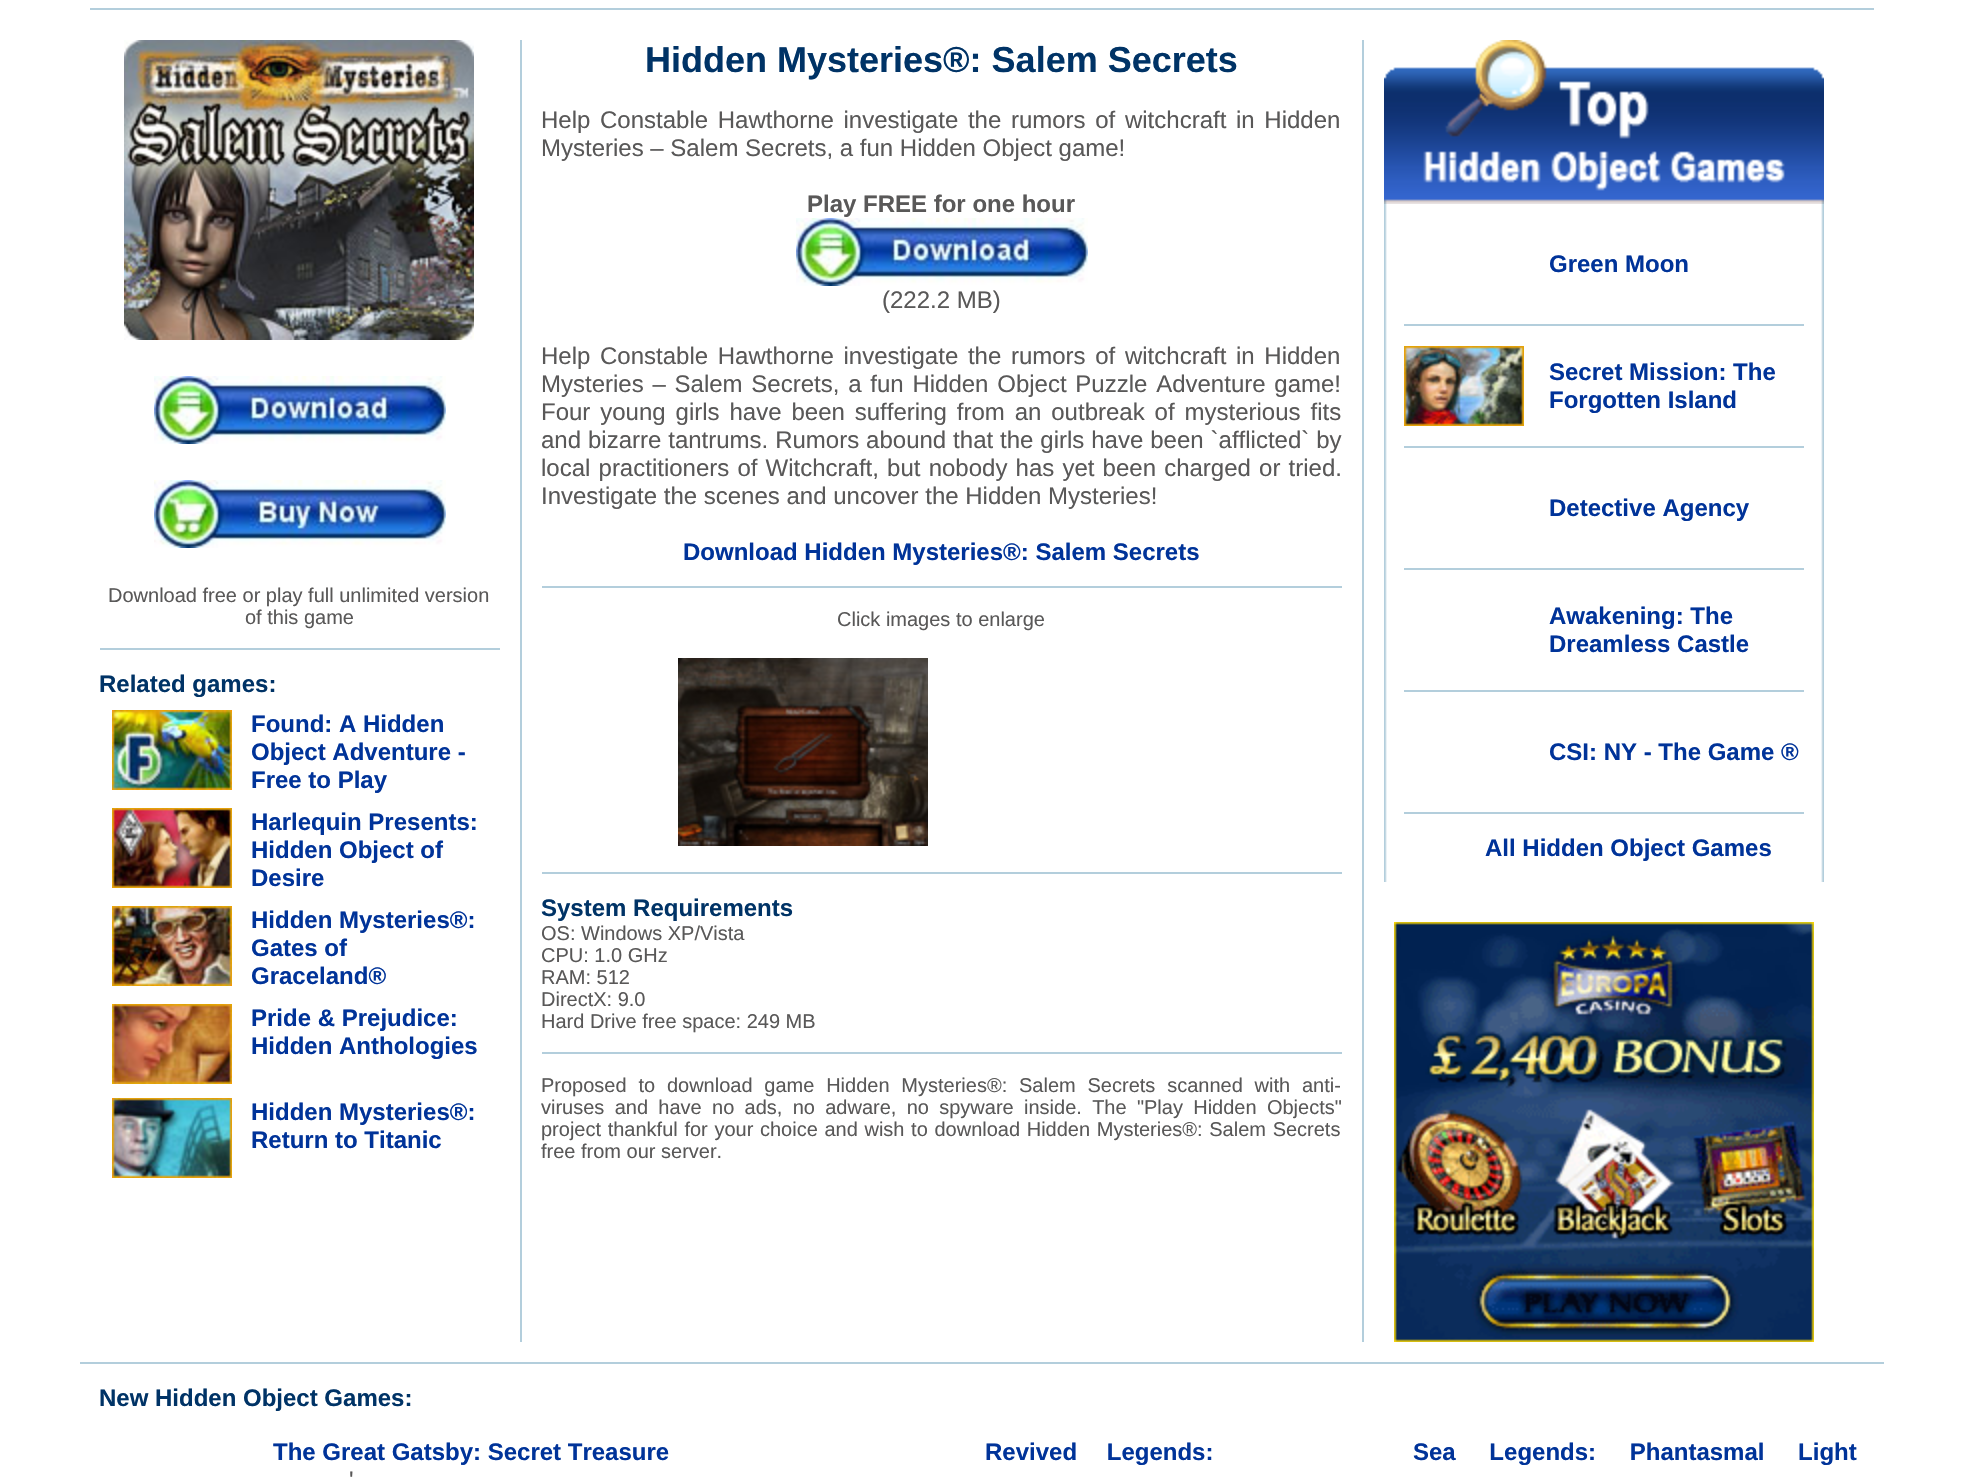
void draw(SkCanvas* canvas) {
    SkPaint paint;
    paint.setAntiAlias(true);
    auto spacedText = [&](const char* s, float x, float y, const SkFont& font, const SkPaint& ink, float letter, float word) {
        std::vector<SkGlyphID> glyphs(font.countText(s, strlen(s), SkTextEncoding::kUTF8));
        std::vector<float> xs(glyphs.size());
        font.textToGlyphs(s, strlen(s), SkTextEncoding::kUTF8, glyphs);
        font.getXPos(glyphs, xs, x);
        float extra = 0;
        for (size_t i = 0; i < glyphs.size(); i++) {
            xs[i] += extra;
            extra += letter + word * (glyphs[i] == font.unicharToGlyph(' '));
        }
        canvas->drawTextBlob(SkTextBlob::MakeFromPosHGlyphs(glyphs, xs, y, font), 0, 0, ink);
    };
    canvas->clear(0xFFFFFFFF);
    paint.setColor(0xFFB3CEDC);
    canvas->drawRect(SkRect::MakeXYWH(90, 8, 1784, 2), paint);
    canvas->drawImageRect(SkImages::DeferredFromEncodedData(SkData::MakeFromFileName("img1.png")), SkRect::MakeXYWH(124, 40, 350, 300), SkSamplingOptions());
    canvas->drawImageRect(SkImages::DeferredFromEncodedData(SkData::MakeFromFileName("img2.png")), SkRect::MakeXYWH(154, 376, 292, 68), SkSamplingOptions());
    canvas->drawImageRect(SkImages::DeferredFromEncodedData(SkData::MakeFromFileName("img3.png")), SkRect::MakeXYWH(154, 480, 292, 68), SkSamplingOptions());
    SkFont font1(fontMgr->matchFamilyStyle("Liberation Sans", SkFontStyle::Normal()), 20);
    font1.setSubpixel(true);
    paint.setColor(0xFF595858);
    canvas->drawString("Download free or play full unlimited version", 108, 602, font1, paint);
    canvas->drawString("of this game", 245, 624, font1, paint);
    paint.setColor(0xFFB3CEDC);
    canvas->drawRect(SkRect::MakeXYWH(100, 648, 400, 2), paint);
    SkFont font2(fontMgr->matchFamilyStyle("Liberation Sans", SkFontStyle::Bold()), 24);
    font2.setSubpixel(true);
    paint.setColor(0xFF003366);
    canvas->drawString("Related games:", 99, 692, font2, paint);
    canvas->drawImageRect(SkImages::DeferredFromEncodedData(SkData::MakeFromFileName("img4.png")), SkRect::MakeXYWH(112, 710, 120, 80), SkSamplingOptions());
    paint.setColor(0xFF003399);
    canvas->drawString("Found: A Hidden", 251, 732, font2, paint);
    canvas->drawString("Object Adventure -", 251, 760, font2, paint);
    canvas->drawString("Free to Play", 251, 788, font2, paint);
    canvas->drawImageRect(SkImages::DeferredFromEncodedData(SkData::MakeFromFileName("img5.png")), SkRect::MakeXYWH(112, 808, 120, 80), SkSamplingOptions());
    canvas->drawString("Harlequin Presents:", 251, 830, font2, paint);
    canvas->drawString("Hidden Object of", 251, 858, font2, paint);
    canvas->drawString("Desire", 251, 886, font2, paint);
    canvas->drawImageRect(SkImages::DeferredFromEncodedData(SkData::MakeFromFileName("img6.png")), SkRect::MakeXYWH(112, 906, 120, 80), SkSamplingOptions());
    canvas->drawString("Hidden Mysteries®:", 251, 928, font2, paint);
    canvas->drawString("Gates of", 251, 956, font2, paint);
    canvas->drawString("Graceland®", 251, 984, font2, paint);
    canvas->drawImageRect(SkImages::DeferredFromEncodedData(SkData::MakeFromFileName("img7.png")), SkRect::MakeXYWH(112, 1004, 120, 80), SkSamplingOptions());
    canvas->drawString("Pride & Prejudice:", 251, 1026, font2, paint);
    canvas->drawString("Hidden Anthologies", 251, 1054, font2, paint);
    canvas->drawImageRect(SkImages::DeferredFromEncodedData(SkData::MakeFromFileName("img8.png")), SkRect::MakeXYWH(112, 1098, 120, 80), SkSamplingOptions());
    canvas->drawString("Hidden Mysteries®:", 251, 1120, font2, paint);
    canvas->drawString("Return to Titanic", 251, 1148, font2, paint);
    paint.setColor(0xFFB3CEDC);
    canvas->drawRect(SkRect::MakeXYWH(520, 40, 2, 1302), paint);
    SkFont font3(fontMgr->matchFamilyStyle("Liberation Sans", SkFontStyle::Bold()), 36);
    font3.setSubpixel(true);
    paint.setColor(0xFF003366);
    canvas->drawString("Hidden Mysteries®: Salem Secrets", 645, 72, font3, paint);
    SkFont font4(fontMgr->matchFamilyStyle("Liberation Sans", SkFontStyle::Normal()), 24);
    font4.setSubpixel(true);
    paint.setColor(0xFF595858);
    spacedText("Help Constable Hawthorne investigate the rumors of witchcraft in Hidden", 541, 128, font4, paint, 0, 3);
    canvas->drawString("Mysteries – Salem Secrets, a fun Hidden Object game!", 541, 156, font4, paint);
    canvas->drawString("Play FREE for one hour", 807, 212, font2, paint);
    canvas->drawImageRect(SkImages::DeferredFromEncodedData(SkData::MakeFromFileName("img2.png")), SkRect::MakeXYWH(796, 218, 292, 68), SkSamplingOptions());
    canvas->drawString("(222.2 MB)", 882, 308, font4, paint);
    spacedText("Help Constable Hawthorne investigate the rumors of witchcraft in Hidden", 541, 364, font4, paint, 0, 3);
    spacedText("Mysteries – Salem Secrets, a fun Hidden Object Puzzle Adventure game!", 541, 392, font4, paint, 0, 2.1f);
    spacedText("Four young girls have been suffering from an outbreak of mysterious fits", 541, 420, font4, paint, 0, 3.25f);
    spacedText("and bizarre tantrums. Rumors abound that the girls have been `afflicted` by", 541, 448, font4, paint, 0, 0.25f);
    spacedText("local practitioners of Witchcraft, but nobody has yet been charged or tried.", 541, 476, font4, paint, 0, 1.5f);
    canvas->drawString("Investigate the scenes and uncover the Hidden Mysteries!", 541, 504, font4, paint);
    paint.setColor(0xFF003399);
    canvas->drawString("Download Hidden Mysteries®: Salem Secrets", 683, 560, font2, paint);
    paint.setColor(0xFFB3CEDC);
    canvas->drawRect(SkRect::MakeXYWH(542, 586, 800, 2), paint);
    paint.setColor(0xFF595858);
    canvas->drawString("Click images to enlarge", 837, 626, font1, paint);
    canvas->drawImageRect(SkImages::DeferredFromEncodedData(SkData::MakeFromFileName("img9.png")), SkRect::MakeXYWH(678, 658, 250, 188), SkSamplingOptions());
    paint.setColor(0xFFB3CEDC);
    canvas->drawRect(SkRect::MakeXYWH(542, 872, 800, 2), paint);
    paint.setColor(0xFF003366);
    canvas->drawString("System Requirements", 541, 916, font2, paint);
    paint.setColor(0xFF595858);
    canvas->drawString("OS: Windows XP/Vista", 541, 940, font1, paint);
    canvas->drawString("CPU: 1.0 GHz", 541, 962, font1, paint);
    canvas->drawString("RAM: 512", 541, 984, font1, paint);
    canvas->drawString("DirectX: 9.0", 541, 1006, font1, paint);
    canvas->drawString("Hard Drive free space: 249 MB", 541, 1028, font1, paint);
    paint.setColor(0xFFB3CEDC);
    canvas->drawRect(SkRect::MakeXYWH(542, 1052, 800, 2), paint);
    paint.setColor(0xFF595858);
    spacedText("Proposed to download game Hidden Mysteries®: Salem Secrets scanned with anti-", 541, 1092, font1, paint, 0, 6.25f);
    spacedText("viruses and have no ads, no adware, no spyware inside. The \"Play Hidden Objects\"", 541, 1114, font1, paint, 0, 4.75f);
    spacedText("project thankful for your choice and wish to download Hidden Mysteries®: Salem Secrets", 541, 1136, font1, paint, 0, 1.1f);
    canvas->drawString("free from our server.", 541, 1158, font1, paint);
    paint.setColor(0xFFB3CEDC);
    canvas->drawRect(SkRect::MakeXYWH(1362, 40, 2, 1302), paint);
    canvas->drawImageRect(SkImages::DeferredFromEncodedData(SkData::MakeFromFileName("img10.png")), SkRect::MakeXYWH(1384, 40, 440, 164), SkSamplingOptions());
    canvas->drawImageRect(SkImages::DeferredFromEncodedData(SkData::MakeFromFileName("img11.png")), SkRect::MakeXYWH(1384, 204, 440, 678), SkSamplingOptions());
    paint.setColor(0xFF003399);
    canvas->drawString("Green Moon", 1549, 272, font2, paint);
    paint.setColor(0xFFB3CEDC);
    canvas->drawRect(SkRect::MakeXYWH(1404, 324, 400, 2), paint);
    canvas->drawImageRect(SkImages::DeferredFromEncodedData(SkData::MakeFromFileName("img12.png")), SkRect::MakeXYWH(1404, 346, 120, 80), SkSamplingOptions());
    paint.setColor(0xFF003399);
    canvas->drawString("Secret Mission: The", 1549, 380, font2, paint);
    canvas->drawString("Forgotten Island", 1549, 408, font2, paint);
    paint.setColor(0xFFB3CEDC);
    canvas->drawRect(SkRect::MakeXYWH(1404, 446, 400, 2), paint);
    paint.setColor(0xFF003399);
    canvas->drawString("Detective Agency", 1549, 516, font2, paint);
    paint.setColor(0xFFB3CEDC);
    canvas->drawRect(SkRect::MakeXYWH(1404, 568, 400, 2), paint);
    paint.setColor(0xFF003399);
    canvas->drawString("Awakening: The", 1549, 624, font2, paint);
    canvas->drawString("Dreamless Castle", 1549, 652, font2, paint);
    paint.setColor(0xFFB3CEDC);
    canvas->drawRect(SkRect::MakeXYWH(1404, 690, 400, 2), paint);
    paint.setColor(0xFF003399);
    canvas->drawString("CSI: NY - The Game ®", 1549, 760, font2, paint);
    paint.setColor(0xFFB3CEDC);
    canvas->drawRect(SkRect::MakeXYWH(1404, 812, 400, 2), paint);
    paint.setColor(0xFF003399);
    canvas->drawString("All Hidden Object Games", 1485, 856, font2, paint);
    canvas->drawImageRect(SkImages::DeferredFromEncodedData(SkData::MakeFromFileName("img13.png")), SkRect::MakeXYWH(1394, 922, 420, 420), SkSamplingOptions());
    paint.setColor(0xFFB3CEDC);
    canvas->drawRect(SkRect::MakeXYWH(80, 1362, 1804, 2), paint);
    paint.setColor(0xFF003366);
    canvas->drawString("New Hidden Object Games:", 99, 1406, font2, paint);
    paint.setColor(0xFF003399);
    canvas->drawString("The Great Gatsby: Secret Treasure", 273, 1460, font2, paint);
    paint.setColor(0xFF595858);
    spacedText("'", 349, 1488, font4, paint, 0, 12);
    paint.setColor(0xFF003399);
    spacedText("Revived Legends:", 985, 1460, font2, paint, 0, 23);
    spacedText("Sea Legends: Phantasmal Light", 1413, 1460, font2, paint, 0, 27);
}
